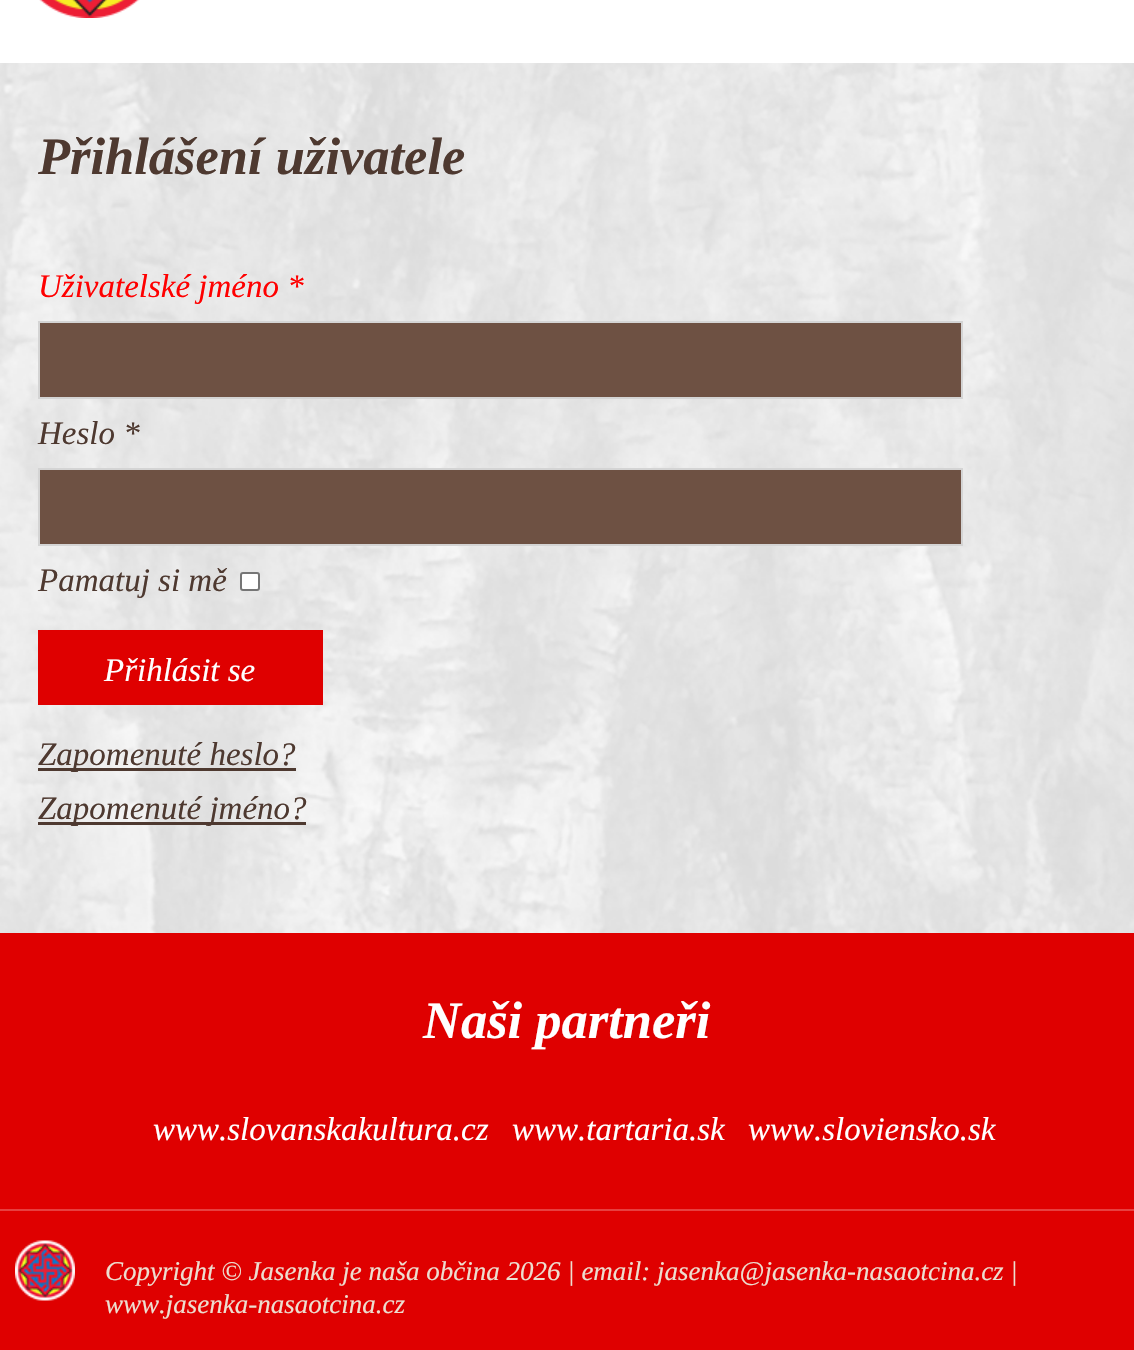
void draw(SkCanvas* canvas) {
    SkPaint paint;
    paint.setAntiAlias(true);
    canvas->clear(0xFFFFFFFF);
    canvas->drawImageRect(SkImages::DeferredFromEncodedData(SkData::MakeFromFileName("img1.png")), SkRect::MakeXYWH(0, 63, 1134, 870), SkSamplingOptions());
    canvas->drawImageRect(SkImages::DeferredFromEncodedData(SkData::MakeFromFileName("img2.png")), SkRect::MakeXYWH(39, 0, 101, 18), SkSamplingOptions());
    SkFont font1(fontMgr->matchFamilyStyle("Liberation Serif", SkFontStyle::BoldItalic()), 52.5f);
    font1.setSubpixel(true);
    paint.setColor(0xFF4E3930);
    canvas->drawString("Přihlášení uživatele", 38, 174, font1, paint);
    SkFont font2(fontMgr->matchFamilyStyle("Liberation Serif", SkFontStyle::Italic()), 33);
    font2.setSubpixel(true);
    paint.setColor(0xFFFF0000);
    canvas->drawString("Uživatelské jméno *", 38, 297, font2, paint);
    paint.setColor(0xFF6E5143);
    canvas->drawRect(SkRect::MakeXYWH(39, 322, 923, 76), paint);
    paint.setStyle(SkPaint::kStroke_Style);
    paint.setStrokeWidth(2);
    paint.setColor(0xFFD4D4D4);
    canvas->drawRect(SkRect::MakeXYWH(39, 322, 923, 76), paint);
    paint.setStyle(SkPaint::kFill_Style);
    paint.setColor(0xFF4E3930);
    canvas->drawString("Heslo *", 38, 444, font2, paint);
    paint.setColor(0xFF6E5143);
    canvas->drawRect(SkRect::MakeXYWH(39, 469, 923, 76), paint);
    paint.setStyle(SkPaint::kStroke_Style);
    paint.setColor(0xFFD4D4D4);
    canvas->drawRect(SkRect::MakeXYWH(39, 469, 923, 76), paint);
    paint.setStyle(SkPaint::kFill_Style);
    paint.setColor(0xFF4E3930);
    canvas->drawString("Pamatuj si mě", 38, 591, font2, paint);
    paint.setColor(0xFFFFFFFF);
    canvas->drawRoundRect(SkRect::MakeXYWH(241, 573, 18, 17), 2, 2, paint);
    paint.setStyle(SkPaint::kStroke_Style);
    paint.setColor(0xFF767676);
    canvas->drawRoundRect(SkRect::MakeXYWH(241, 573, 18, 17), 2, 2, paint);
    paint.setStyle(SkPaint::kFill_Style);
    paint.setColor(0xFFDF0000);
    canvas->drawRect(SkRect::MakeXYWH(38, 630, 285, 75), paint);
    paint.setColor(0xFFFFFFFF);
    canvas->drawString("Přihlásit se", 104, 681, font2, paint);
    paint.setColor(0xFF4E3930);
    canvas->drawRect(SkRect::MakeXYWH(38, 768, 258, 3), paint);
    canvas->drawString("Zapomenuté heslo?", 38, 765, font2, paint);
    canvas->drawRect(SkRect::MakeXYWH(38, 822, 268, 3), paint);
    canvas->drawString("Zapomenuté jméno?", 38, 819, font2, paint);
    paint.setColor(0xFFDF0000);
    canvas->drawRect(SkRect::MakeXYWH(0, 933, 1134, 417), paint);
    paint.setColor(0xFFFFFFFF);
    canvas->drawString("Naši partneři", 423, 1038, font1, paint);
    canvas->drawString("www.slovanskakultura.cz", 153, 1140, font2, paint);
    canvas->drawString("www.tartaria.sk", 512, 1140, font2, paint);
    canvas->drawString("www.sloviensko.sk", 748, 1140, font2, paint);
    paint.setColor(0xFFE74040);
    canvas->drawRect(SkRect::MakeXYWH(0, 1209, 1134, 2), paint);
    canvas->drawImageRect(SkImages::DeferredFromEncodedData(SkData::MakeFromFileName("img3.png")), SkRect::MakeXYWH(15, 1240, 60, 61), SkSamplingOptions());
    SkFont font3(fontMgr->matchFamilyStyle("Liberation Serif", SkFontStyle::Italic()), 27);
    font3.setSubpixel(true);
    paint.setColor(0xFFEDDED0);
    canvas->drawString("Copyright © Jasenka je naša občina 2026 | email: jasenka@jasenka-nasaotcina.cz |", 105, 1280, font3, paint);
    canvas->drawString("www.jasenka-nasaotcina.cz", 105, 1313, font3, paint);
}
